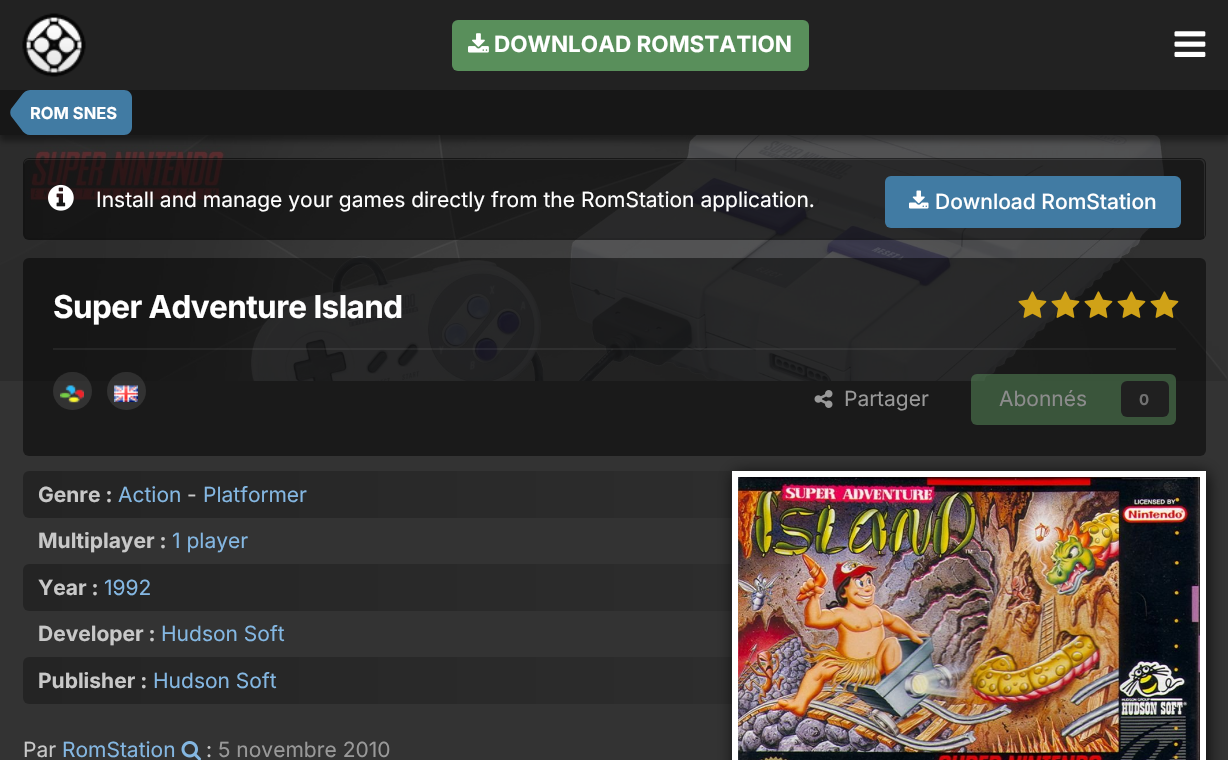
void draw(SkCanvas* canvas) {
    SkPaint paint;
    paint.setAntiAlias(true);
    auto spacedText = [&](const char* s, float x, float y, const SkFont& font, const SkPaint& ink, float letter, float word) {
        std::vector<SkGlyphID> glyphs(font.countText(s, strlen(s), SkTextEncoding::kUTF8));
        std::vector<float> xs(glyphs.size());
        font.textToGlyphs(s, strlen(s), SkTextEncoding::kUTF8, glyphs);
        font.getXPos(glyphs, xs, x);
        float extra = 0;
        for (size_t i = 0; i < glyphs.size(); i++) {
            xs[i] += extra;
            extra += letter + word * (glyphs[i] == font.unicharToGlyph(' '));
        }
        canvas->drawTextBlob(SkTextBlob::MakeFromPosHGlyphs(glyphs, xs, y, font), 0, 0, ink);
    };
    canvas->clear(0xFF333333);
    paint.setColor(0xFF222222);
    canvas->drawRect(SkRect::MakeXYWH(0, 0, 1228, 90), paint);
    canvas->drawImageRect(SkImages::DeferredFromEncodedData(SkData::MakeFromFileName("img1.png")), SkRect::MakeXYWH(22, 13, 64, 64), SkSamplingOptions());
    paint.setColor(0xFF598F5B);
    canvas->drawRoundRect(SkRect::MakeXYWH(452, 20, 357, 51), 6, 6, paint);
    canvas->drawImageRect(SkImages::DeferredFromEncodedData(SkData::MakeFromFileName("img2.png")), SkRect::MakeXYWH(468, 33, 21, 20), SkSamplingOptions());
    SkFont font1(fontMgr->matchFamilyStyle("Inter", SkFontStyle::Bold()), 22.5f);
    font1.setSubpixel(true);
    paint.setColor(0xFFFFFFFF);
    canvas->drawString("DOWNLOAD ROMSTATION", 494, 52, font1, paint);
    canvas->drawImageRect(SkImages::DeferredFromEncodedData(SkData::MakeFromFileName("img3.png")), SkRect::MakeXYWH(1174, 31, 32, 26), SkSamplingOptions());
    canvas->drawImageRect(SkImages::DeferredFromEncodedData(SkData::MakeFromFileName("img4.png")), SkRect::MakeXYWH(0, 135, 1227, 246), SkSamplingOptions());
    paint.setColor(0x66000000);
    paint.setMaskFilter(SkMaskFilter::MakeBlur(kNormal_SkBlurStyle, 3));
    canvas->drawRect(SkRect::MakeXYWH(0, 96, 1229, 45), paint);
    paint.setMaskFilter(nullptr);
    paint.setColor(0xFF171717);
    canvas->drawRect(SkRect::MakeXYWH(0, 90, 1228, 45), paint);
    paint.setColor(0xFF417BA3);
    canvas->drawPath(SkPathBuilder().moveTo(30, 90).lineTo(124, 90).cubicTo(128.5f, 90, 132, 93.5f, 132, 98).lineTo(132, 127).cubicTo(132, 131.5f, 128.5f, 135, 124, 135).lineTo(30, 135).close().detach(), paint);
    canvas->drawPath(SkPathBuilder().moveTo(39, 96).lineTo(42, 100).cubicTo(47, 107, 47, 118, 42, 125).lineTo(39, 129).cubicTo(34, 137, 26, 137, 21, 129).lineTo(11, 116).cubicTo(10, 114, 10, 111, 11, 109).lineTo(21, 96).cubicTo(26, 88, 34, 88, 39, 96).close().detach(), paint);
    SkFont font2(fontMgr->matchFamilyStyle("Inter", SkFontStyle::Bold()), 16.5f);
    font2.setSubpixel(true);
    paint.setColor(0xFFFFFFFF);
    canvas->drawString("ROM SNES", 30, 119, font2, paint);
    paint.setColor(0x80000000);
    canvas->drawRoundRect(SkRect::MakeXYWH(23, 158, 1183, 82), 6, 6, paint);
    paint.setColor(0x1AFFFFFF);
    canvas->drawPath(SkPathBuilder().moveTo(28, 160).lineTo(1200, 160).cubicTo(1202, 160, 1204, 163, 1204, 165).lineTo(1204, 237).cubicTo(1205, 236, 1205, 235, 1205, 234).lineTo(1205, 164).cubicTo(1205, 161, 1203, 159, 1200, 159).lineTo(29, 159).cubicTo(26, 159, 24, 161, 24, 164).lineTo(24, 165).cubicTo(24, 163, 26, 160, 28, 160).close().detach(), paint);
    paint.setStyle(SkPaint::kStroke_Style);
    paint.setStrokeWidth(2);
    paint.setColor(0x1A000000);
    canvas->drawRoundRect(SkRect::MakeXYWH(24, 159, 1181, 80), 5, 5, paint);
    canvas->drawImageRect(SkImages::DeferredFromEncodedData(SkData::MakeFromFileName("img5.png")), SkRect::MakeXYWH(48, 184, 26, 27), SkSamplingOptions());
    SkFont font3(fontMgr->matchFamilyStyle("Inter", SkFontStyle::Normal()), 21);
    font3.setSubpixel(true);
    paint.setStyle(SkPaint::kFill_Style);
    paint.setColor(0xFFFFFFFF);
    canvas->drawString("Install and manage your games directly from the RomStation application.", 96, 207, font3, paint);
    paint.setColor(0xFF417BA3);
    canvas->drawRoundRect(SkRect::MakeXYWH(885, 176, 296, 52), 6, 6, paint);
    canvas->drawImageRect(SkImages::DeferredFromEncodedData(SkData::MakeFromFileName("img6.png")), SkRect::MakeXYWH(909, 190, 20, 19), SkSamplingOptions());
    SkFont font4(fontMgr->matchFamilyStyle("Inter", SkFontStyle(500, SkFontStyle::kNormal_Width, SkFontStyle::kUpright_Slant)), 21);
    font4.setSubpixel(true);
    paint.setColor(0xFFFFFFFF);
    canvas->drawString("Download RomStation", 935, 209, font4, paint);
    {
        const SkColor colors[] = {0xFF242424, 0xFF333333};
        const float stops[] = {0, 1};
        const SkPoint ends[] = {{23, 494}, {1206, 494}};
        paint.setShader(SkGradientShader::MakeLinear(ends, colors, stops, 2, SkTileMode::kClamp));
        paint.setAlpha(255);
    }
    canvas->drawRoundRect(SkRect::MakeXYWH(23, 471, 1183, 47), 6, 6, paint);
    {
        const SkColor colors[] = {0xFF242424, 0xFF333333};
        const float stops[] = {0, 1};
        const SkPoint ends[] = {{23, 587}, {1206, 587}};
        paint.setShader(SkGradientShader::MakeLinear(ends, colors, stops, 2, SkTileMode::kClamp));
        paint.setAlpha(255);
    }
    canvas->drawRoundRect(SkRect::MakeXYWH(23, 564, 1183, 47), 6, 6, paint);
    {
        const SkColor colors[] = {0xFF242424, 0xFF333333};
        const float stops[] = {0, 1};
        const SkPoint ends[] = {{23, 680}, {1206, 680}};
        paint.setShader(SkGradientShader::MakeLinear(ends, colors, stops, 2, SkTileMode::kClamp));
        paint.setAlpha(255);
    }
    canvas->drawRoundRect(SkRect::MakeXYWH(23, 657, 1183, 47), 6, 6, paint);
    paint.setShader(nullptr);
    paint.setColor(0xCC000000);
    paint.setMaskFilter(SkMaskFilter::MakeBlur(kNormal_SkBlurStyle, 7.5f));
    canvas->drawRect(SkRect::MakeXYWH(734, 473, 474, 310), paint);
    paint.setMaskFilter(nullptr);
    paint.setColor(0x80000000);
    canvas->drawRoundRect(SkRect::MakeXYWH(23, 258, 1183, 198), 6, 6, paint);
    SkFont font5(fontMgr->matchFamilyStyle("Inter", SkFontStyle::Bold()), 31.5f);
    font5.setSubpixel(true);
    paint.setColor(0xFFFFFFFF);
    spacedText("Super Adventure Island", 53, 318, font5, paint, -0.6f, 0);
    canvas->drawImageRect(SkImages::DeferredFromEncodedData(SkData::MakeFromFileName("img7.png")), SkRect::MakeXYWH(1018, 291, 29, 27), SkSamplingOptions());
    canvas->drawImageRect(SkImages::DeferredFromEncodedData(SkData::MakeFromFileName("img8.png")), SkRect::MakeXYWH(1051, 291, 29, 27), SkSamplingOptions());
    canvas->drawImageRect(SkImages::DeferredFromEncodedData(SkData::MakeFromFileName("img9.png")), SkRect::MakeXYWH(1084, 291, 29, 27), SkSamplingOptions());
    canvas->drawImageRect(SkImages::DeferredFromEncodedData(SkData::MakeFromFileName("img10.png")), SkRect::MakeXYWH(1117, 291, 29, 27), SkSamplingOptions());
    canvas->drawImageRect(SkImages::DeferredFromEncodedData(SkData::MakeFromFileName("img11.png")), SkRect::MakeXYWH(1150, 291, 29, 27), SkSamplingOptions());
    paint.setColor(0x14C8C8C8);
    canvas->drawRect(SkRect::MakeXYWH(53, 348, 1123, 2), paint);
    paint.setColor(0x1AFFFFFF);
    canvas->drawRoundRect(SkRect::MakeXYWH(53, 372, 39, 38), 19, 19, paint);
    canvas->drawImageRect(SkImages::DeferredFromEncodedData(SkData::MakeFromFileName("img12.png")), SkRect::MakeXYWH(60, 385, 24, 18), SkSamplingOptions());
    canvas->drawRoundRect(SkRect::MakeXYWH(107, 372, 39, 38), 19, 19, paint);
    canvas->drawImageRect(SkImages::DeferredFromEncodedData(SkData::MakeFromFileName("img13.png")), SkRect::MakeXYWH(114, 385, 24, 17), SkSamplingOptions());
    canvas->drawImageRect(SkImages::DeferredFromEncodedData(SkData::MakeFromFileName("img14.png")), SkRect::MakeXYWH(814, 390, 19, 18), SkSamplingOptions());
    paint.setColor(0xFF999999);
    canvas->drawString("Partager", 844, 406, font3, paint);
    paint.setColor(0x80598F5B);
    canvas->drawRoundRect(SkRect::MakeXYWH(971, 374, 205, 51), 6, 6, paint);
    paint.setColor(0xFF8C8C8C);
    canvas->drawString("Abonnés", 999, 406, font3, paint);
    paint.setColor(0xFF202020);
    canvas->drawRoundRect(SkRect::MakeXYWH(1121, 381, 48, 36), 6, 6, paint);
    SkFont font6(fontMgr->matchFamilyStyle("Inter", SkFontStyle::Bold()), 15);
    font6.setSubpixel(true);
    paint.setColor(0xFF717171);
    canvas->drawString("0", 1139, 405, font6, paint);
    SkFont font7(fontMgr->matchFamilyStyle("Inter", SkFontStyle::Bold()), 21);
    font7.setSubpixel(true);
    paint.setColor(0xFFC8C8C8);
    canvas->drawString("Genre :", 38, 502, font7, paint);
    paint.setColor(0xFF84B7E2);
    canvas->drawString("Action", 118, 502, font3, paint);
    paint.setColor(0xFFC8C8C8);
    canvas->drawString("-", 187, 502, font3, paint);
    paint.setColor(0xFF84B7E2);
    canvas->drawString("Platformer", 203, 502, font3, paint);
    paint.setColor(0xFFC8C8C8);
    canvas->drawString("Multiplayer :", 38, 548, font7, paint);
    paint.setColor(0xFF84B7E2);
    canvas->drawString("1 player", 172, 548, font3, paint);
    paint.setColor(0xFFC8C8C8);
    canvas->drawString("Year :", 38, 595, font7, paint);
    paint.setColor(0xFF84B7E2);
    canvas->drawString("1992", 104, 595, font3, paint);
    paint.setColor(0xFFC8C8C8);
    canvas->drawString("Developer :", 38, 641, font7, paint);
    paint.setColor(0xFF84B7E2);
    canvas->drawString("Hudson Soft", 161, 641, font3, paint);
    paint.setColor(0xFFC8C8C8);
    canvas->drawString("Publisher :", 38, 688, font7, paint);
    paint.setColor(0xFF84B7E2);
    canvas->drawString("Hudson Soft", 153, 688, font3, paint);
    paint.setStyle(SkPaint::kStroke_Style);
    paint.setStrokeWidth(6);
    paint.setColor(0xFFFFFFFF);
    canvas->drawRect(SkRect::MakeXYWH(735, 474, 468, 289), paint);
    canvas->drawImageRect(SkImages::DeferredFromEncodedData(SkData::MakeFromFileName("img15.png")), SkRect::MakeXYWH(738, 477, 462, 283), SkSamplingOptions());
    paint.setStyle(SkPaint::kFill_Style);
    paint.setColor(0xFFC8C8C8);
    canvas->drawString("Par", 23, 757, font3, paint);
    paint.setColor(0xFF84B7E2);
    canvas->drawString("RomStation", 62, 757, font3, paint);
    canvas->drawImageRect(SkImages::DeferredFromEncodedData(SkData::MakeFromFileName("img16.png")), SkRect::MakeXYWH(181, 741, 20, 19), SkSamplingOptions());
    paint.setColor(0xFFC8C8C8);
    canvas->drawString(":", 206, 757, font3, paint);
    paint.setColor(0xFF999999);
    canvas->drawString("5 novembre 2010", 218, 757, font3, paint);
}
